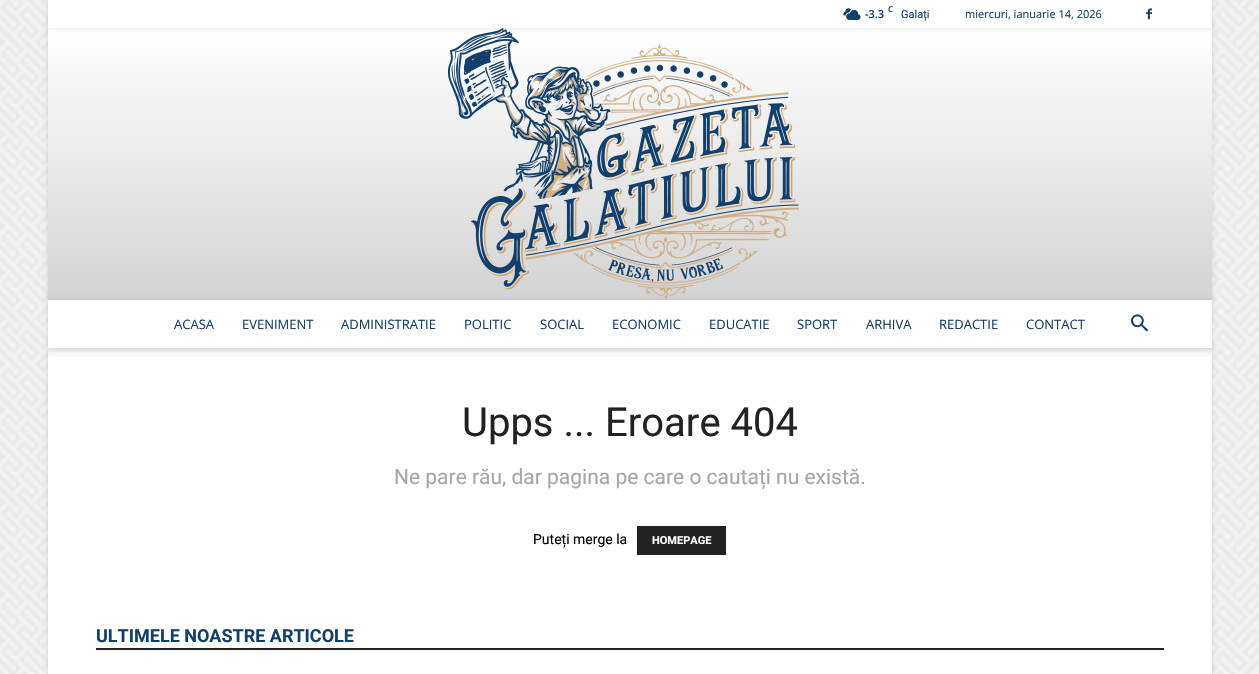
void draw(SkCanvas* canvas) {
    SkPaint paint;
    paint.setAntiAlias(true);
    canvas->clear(0xFFFFFFFF);
    canvas->drawImageRect(SkImages::DeferredFromEncodedData(SkData::MakeFromFileName("img1.png")), SkRect::MakeXYWH(0, 0, 1259, 674), SkSamplingOptions());
    paint.setColor(0x1F000000);
    paint.setMaskFilter(SkMaskFilter::MakeBlur(kNormal_SkBlurStyle, 2.5f));
    canvas->drawRect(SkRect::MakeXYWH(48, 28, 1164, 272), paint);
    paint.setMaskFilter(nullptr);
    {
        const SkColor colors[] = {0xFFFFFFFF, 0xFFD3D3D3};
        const float stops[] = {0, 1};
        const SkPoint ends[] = {{630, 28}, {630, 300}};
        paint.setShader(SkGradientShader::MakeLinear(ends, colors, stops, 2, SkTileMode::kClamp));
        paint.setAlpha(255);
    }
    canvas->drawRect(SkRect::MakeXYWH(48, 28, 1164, 272), paint);
    canvas->drawImageRect(SkImages::DeferredFromEncodedData(SkData::MakeFromFileName("img4.png")), SkRect::MakeXYWH(448, 28, 351, 272), SkSamplingOptions());
    paint.setShader(nullptr);
    paint.setColor(0x1F000000);
    paint.setMaskFilter(SkMaskFilter::MakeBlur(kNormal_SkBlurStyle, 2.5f));
    canvas->drawRect(SkRect::MakeXYWH(48, 0, 1164, 28), paint);
    paint.setMaskFilter(nullptr);
    paint.setColor(0xFFFFFFFF);
    canvas->drawRect(SkRect::MakeXYWH(48, 0, 1164, 28), paint);
    canvas->drawImageRect(SkImages::DeferredFromEncodedData(SkData::MakeFromFileName("img2.png")), SkRect::MakeXYWH(843, 8, 18, 12), SkSamplingOptions());
    SkFont font1(fontMgr->matchFamilyStyle("Open Sans", SkFontStyle(600, SkFontStyle::kNormal_Width, SkFontStyle::kUpright_Slant)), 11);
    font1.setSubpixel(true);
    paint.setColor(0xFF12406C);
    canvas->drawString("-3.3", 865, 18, font1, paint);
    SkFont font2(fontMgr->matchFamilyStyle("Open Sans", SkFontStyle(600, SkFontStyle::kNormal_Width, SkFontStyle::kUpright_Slant)), 8);
    font2.setSubpixel(true);
    canvas->drawString("C", 888, 12, font2, paint);
    SkFont font3(fontMgr->matchFamilyStyle("Roboto", SkFontStyle::Normal()), 11);
    font3.setSubpixel(true);
    canvas->drawString("Galați", 901, 18, font3, paint);
    SkFont font4(fontMgr->matchFamilyStyle("Open Sans", SkFontStyle::Normal()), 11);
    font4.setSubpixel(true);
    canvas->drawString("miercuri, ianuarie 14, 2026", 965, 18, font4, paint);
    canvas->drawImageRect(SkImages::DeferredFromEncodedData(SkData::MakeFromFileName("img3.png")), SkRect::MakeXYWH(1146, 8, 6, 12), SkSamplingOptions());
    paint.setColor(0x1F000000);
    paint.setMaskFilter(SkMaskFilter::MakeBlur(kNormal_SkBlurStyle, 2.5f));
    canvas->drawRect(SkRect::MakeXYWH(48, 348, 1164, 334), paint);
    paint.setMaskFilter(nullptr);
    paint.setColor(0xFFFFFFFF);
    canvas->drawRect(SkRect::MakeXYWH(48, 348, 1164, 326), paint);
    paint.setColor(0x1F000000);
    paint.setMaskFilter(SkMaskFilter::MakeBlur(kNormal_SkBlurStyle, 2.5f));
    canvas->drawRect(SkRect::MakeXYWH(48, 300, 1164, 48), paint);
    paint.setMaskFilter(nullptr);
    paint.setColor(0xFFFFFFFF);
    canvas->drawRect(SkRect::MakeXYWH(48, 300, 1164, 48), paint);
    SkFont font5(fontMgr->matchFamilyStyle("Open Sans", SkFontStyle::Normal()), 13);
    font5.setSubpixel(true);
    paint.setColor(0xFF12406C);
    canvas->drawString("ACASA", 174, 329, font5, paint);
    canvas->drawString("EVENIMENT", 242, 329, font5, paint);
    canvas->drawString("ADMINISTRATIE", 341, 329, font5, paint);
    canvas->drawString("POLITIC", 464, 329, font5, paint);
    canvas->drawString("SOCIAL", 540, 329, font5, paint);
    canvas->drawString("ECONOMIC", 612, 329, font5, paint);
    canvas->drawString("EDUCATIE", 709, 329, font5, paint);
    canvas->drawString("SPORT", 797, 329, font5, paint);
    canvas->drawString("ARHIVA", 866, 329, font5, paint);
    canvas->drawString("REDACTIE", 939, 329, font5, paint);
    canvas->drawString("CONTACT", 1026, 329, font5, paint);
    canvas->drawImageRect(SkImages::DeferredFromEncodedData(SkData::MakeFromFileName("img5.png")), SkRect::MakeXYWH(1131, 314, 17, 18), SkSamplingOptions());
    canvas->drawImageRect(SkImages::DeferredFromEncodedData(SkData::MakeFromFileName("img6.png")), SkRect::MakeXYWH(48, 348, 1164, 9), SkSamplingOptions());
    SkFont font6(fontMgr->matchFamilyStyle("Roboto", SkFontStyle::Normal()), 40);
    font6.setSubpixel(true);
    paint.setColor(0xFF222222);
    canvas->drawString("Upps ... Eroare 404", 462, 436, font6, paint);
    SkFont font7(fontMgr->matchFamilyStyle("Roboto", SkFontStyle::Normal()), 21);
    font7.setSubpixel(true);
    paint.setColor(0xFFA6A6A6);
    canvas->drawString("Ne pare rău, dar pagina pe care o cautați nu există.", 394, 484, font7, paint);
    SkFont font8(fontMgr->matchFamilyStyle("Roboto", SkFontStyle::Normal()), 14);
    font8.setSubpixel(true);
    paint.setColor(0xFF000000);
    canvas->drawString("Puteți merge la", 533, 544, font8, paint);
    paint.setColor(0xFF222222);
    canvas->drawRect(SkRect::MakeXYWH(637, 526, 89, 29), paint);
    SkFont font9(fontMgr->matchFamilyStyle("Roboto", SkFontStyle::Bold()), 11);
    font9.setSubpixel(true);
    paint.setColor(0xFFFFFFFF);
    canvas->drawString("HOMEPAGE", 652, 544, font9, paint);
    paint.setColor(0xFF222222);
    canvas->drawRect(SkRect::MakeXYWH(96, 648, 1068, 2), paint);
    SkFont font10(fontMgr->matchFamilyStyle("Roboto", SkFontStyle::Bold()), 18);
    font10.setSubpixel(true);
    paint.setColor(0xFF12406C);
    canvas->drawString("ULTIMELE NOASTRE ARTICOLE", 96, 642, font10, paint);
}
